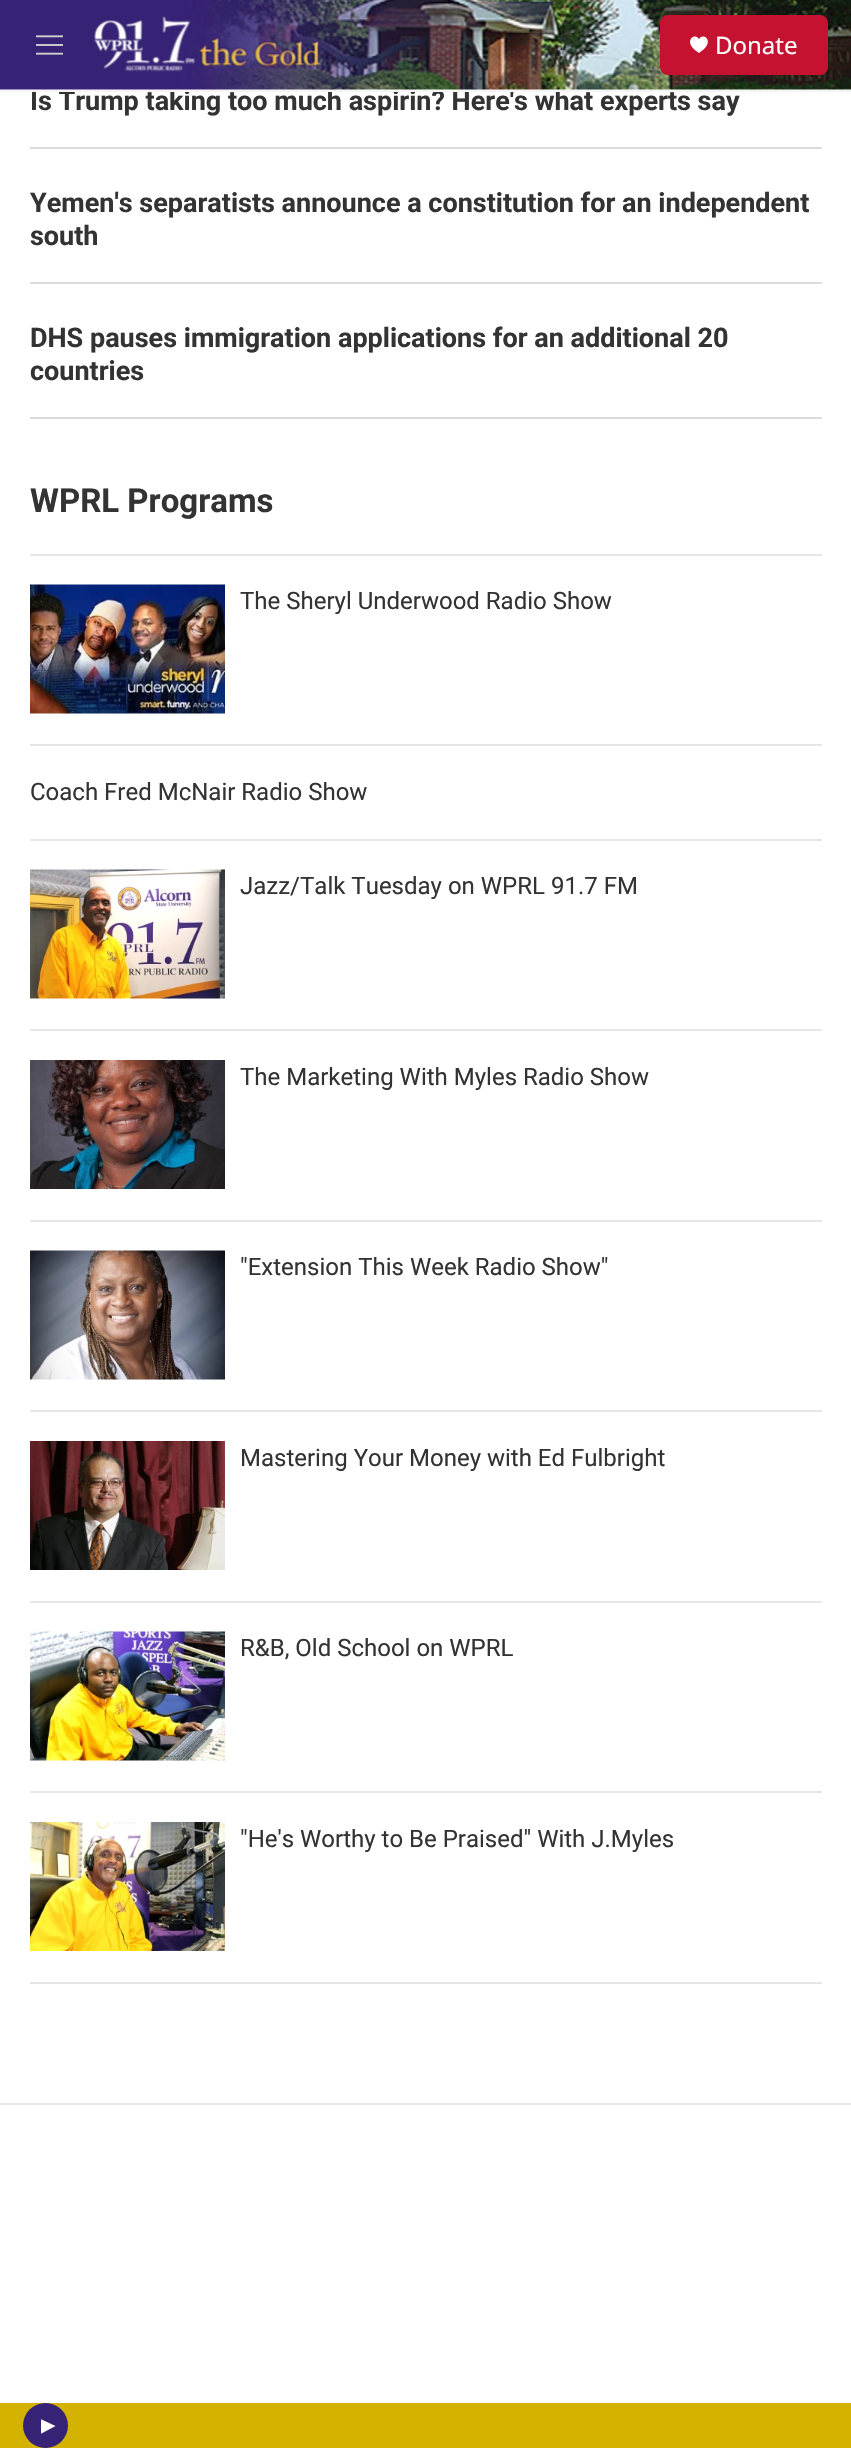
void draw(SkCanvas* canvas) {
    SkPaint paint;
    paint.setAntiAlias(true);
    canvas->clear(0xFFFFFFFF);
    SkFont font1(fontMgr->matchFamilyStyle("Roboto", SkFontStyle::Bold()), 27);
    font1.setSubpixel(true);
    paint.setColor(0xFF333333);
    canvas->drawString("Is Trump taking too much aspirin? Here's what experts say", 30, 110, font1, paint);
    paint.setColor(0xFFFFFFFF);
    canvas->drawRect(SkRect::MakeXYWH(170, 89, 390, 1), paint);
    paint.setColor(0xFFF5F5F5);
    canvas->drawRect(SkRect::MakeXYWH(0, 90, 851, 2), paint);
    canvas->drawImageRect(SkImages::DeferredFromEncodedData(SkData::MakeFromFileName("img1.png")), SkRect::MakeXYWH(0, 0, 851, 90), SkSamplingOptions());
    canvas->drawImageRect(SkImages::DeferredFromEncodedData(SkData::MakeFromFileName("img2.png")), SkRect::MakeXYWH(36, 35, 27, 20), SkSamplingOptions());
    canvas->drawImageRect(SkImages::DeferredFromEncodedData(SkData::MakeFromFileName("img3.png")), SkRect::MakeXYWH(94, 16, 227, 56), SkSamplingOptions());
    paint.setColor(0xFFC41230);
    canvas->drawRoundRect(SkRect::MakeXYWH(660, 15, 168, 60), 8, 8, paint);
    paint.setColor(0xFFFFFFFF);
    canvas->drawPath(SkPathBuilder().moveTo(699, 39.5f).cubicTo(696, 31.5f, 680.5f, 41.5f, 699, 53).cubicTo(717.5f, 41.5f, 702, 31.5f, 699, 39.5f).close().detach(), paint);
    SkFont font2(fontMgr->matchFamilyStyle("Noto Sans", SkFontStyle::Normal()), 24);
    font2.setSubpixel(true);
    canvas->drawString("Donate", 715, 54, font2, paint);
    paint.setColor(0xFFD3B200);
    canvas->drawRect(SkRect::MakeXYWH(0, 2403, 851, 45), paint);
    paint.setColor(0xFF362375);
    canvas->drawCircle(45.5f, 2425.5f, 22.5f, paint);
    canvas->save();
    canvas->clipRect(SkRect::MakeXYWH(41, 2418, 15, 17));
    paint.setColor(0xFFFFFFFF);
    canvas->drawPath(SkPathBuilder().moveTo(40.5f, 2419).lineTo(55.5f, 2426).lineTo(40.5f, 2434).close().detach(), paint);
    canvas->restore();
    paint.setColor(0xFFDCDCDC);
    canvas->drawRect(SkRect::MakeXYWH(30, 147, 792, 2), paint);
    canvas->drawRect(SkRect::MakeXYWH(30, 282, 792, 2), paint);
    paint.setColor(0xFF333333);
    canvas->drawString("Yemen's separatists announce a constitution for an independent", 30, 212, font1, paint);
    canvas->drawString("south", 30, 245, font1, paint);
    paint.setColor(0xFFDCDCDC);
    canvas->drawRect(SkRect::MakeXYWH(30, 417, 792, 2), paint);
    paint.setColor(0xFF333333);
    canvas->drawString("DHS pauses immigration applications for an additional 20", 30, 347, font1, paint);
    canvas->drawString("countries", 30, 380, font1, paint);
    paint.setColor(0xFFE6E6E6);
    canvas->drawRect(SkRect::MakeXYWH(30, 554, 792, 2), paint);
    SkFont font3(fontMgr->matchFamilyStyle("Roboto", SkFontStyle::Bold()), 33);
    font3.setSubpixel(true);
    paint.setColor(0xFF333333);
    canvas->drawString("WPRL Programs", 30, 512, font3, paint);
    paint.setColor(0xFFE6E6E6);
    canvas->drawRect(SkRect::MakeXYWH(30, 744, 792, 2), paint);
    canvas->drawImageRect(SkImages::DeferredFromEncodedData(SkData::MakeFromFileName("img4.png")), SkRect::MakeXYWH(30, 584, 195, 130), SkSamplingOptions());
    SkFont font4(fontMgr->matchFamilyStyle("Roboto", SkFontStyle::Normal()), 24);
    font4.setSubpixel(true);
    paint.setColor(0xFF333333);
    canvas->drawString("The Sheryl Underwood Radio Show", 240, 609, font4, paint);
    paint.setColor(0xFFE6E6E6);
    canvas->drawRect(SkRect::MakeXYWH(30, 839, 792, 2), paint);
    paint.setColor(0xFF333333);
    canvas->drawString("Coach Fred McNair Radio Show", 30, 800, font4, paint);
    paint.setColor(0xFFE6E6E6);
    canvas->drawRect(SkRect::MakeXYWH(30, 1029, 792, 2), paint);
    canvas->drawImageRect(SkImages::DeferredFromEncodedData(SkData::MakeFromFileName("img5.png")), SkRect::MakeXYWH(30, 869, 195, 130), SkSamplingOptions());
    paint.setColor(0xFF333333);
    canvas->drawString("Jazz/Talk Tuesday on WPRL 91.7 FM", 240, 894, font4, paint);
    paint.setColor(0xFFE6E6E6);
    canvas->drawRect(SkRect::MakeXYWH(30, 1220, 792, 2), paint);
    canvas->drawImageRect(SkImages::DeferredFromEncodedData(SkData::MakeFromFileName("img6.png")), SkRect::MakeXYWH(30, 1060, 195, 129), SkSamplingOptions());
    paint.setColor(0xFF333333);
    canvas->drawString("The Marketing With Myles Radio Show", 240, 1085, font4, paint);
    paint.setColor(0xFFE6E6E6);
    canvas->drawRect(SkRect::MakeXYWH(30, 1410, 792, 2), paint);
    canvas->drawImageRect(SkImages::DeferredFromEncodedData(SkData::MakeFromFileName("img7.png")), SkRect::MakeXYWH(30, 1250, 195, 130), SkSamplingOptions());
    paint.setColor(0xFF333333);
    canvas->drawString("\"Extension This Week Radio Show\"", 240, 1275, font4, paint);
    paint.setColor(0xFFE6E6E6);
    canvas->drawRect(SkRect::MakeXYWH(30, 1601, 792, 2), paint);
    canvas->drawImageRect(SkImages::DeferredFromEncodedData(SkData::MakeFromFileName("img8.png")), SkRect::MakeXYWH(30, 1441, 195, 129), SkSamplingOptions());
    paint.setColor(0xFF333333);
    canvas->drawString("Mastering Your Money with Ed Fulbright", 240, 1466, font4, paint);
    paint.setColor(0xFFE6E6E6);
    canvas->drawRect(SkRect::MakeXYWH(30, 1791, 792, 2), paint);
    canvas->drawImageRect(SkImages::DeferredFromEncodedData(SkData::MakeFromFileName("img9.png")), SkRect::MakeXYWH(30, 1631, 195, 130), SkSamplingOptions());
    paint.setColor(0xFF333333);
    canvas->drawString("R&B, Old School on WPRL", 240, 1656, font4, paint);
    paint.setColor(0xFFE6E6E6);
    canvas->drawRect(SkRect::MakeXYWH(30, 1982, 792, 2), paint);
    canvas->drawImageRect(SkImages::DeferredFromEncodedData(SkData::MakeFromFileName("img10.png")), SkRect::MakeXYWH(30, 1822, 195, 129), SkSamplingOptions());
    paint.setColor(0xFF333333);
    canvas->drawString("\"He's Worthy to Be Praised\" With J.Myles", 240, 1847, font4, paint);
    paint.setColor(0xFFE6E6E6);
    canvas->drawRect(SkRect::MakeXYWH(0, 2103, 851, 2), paint);
}
